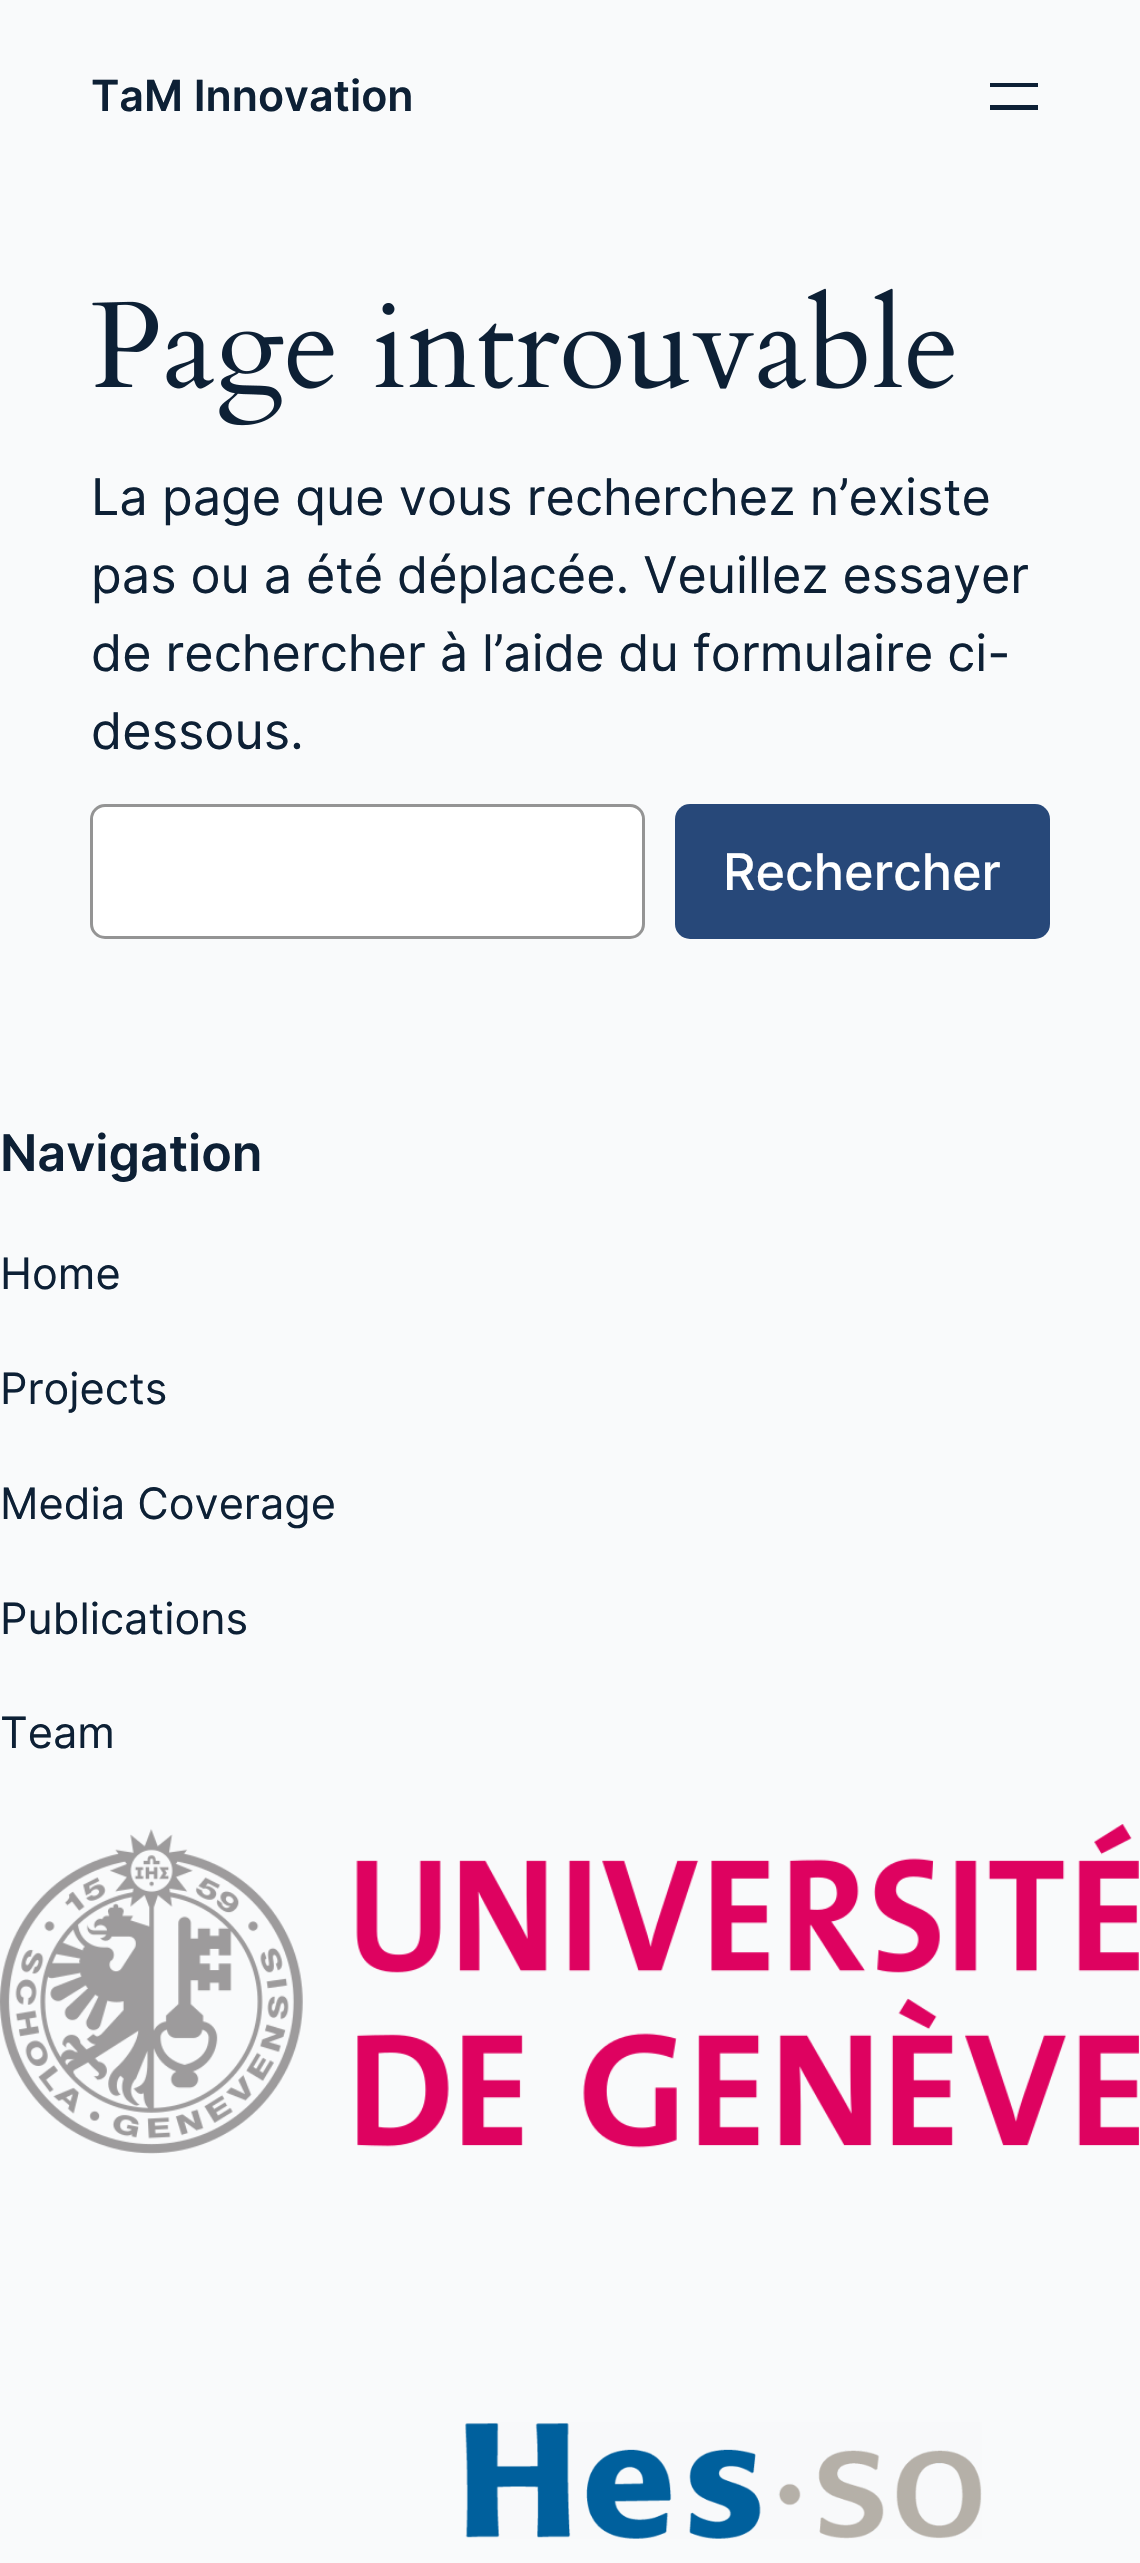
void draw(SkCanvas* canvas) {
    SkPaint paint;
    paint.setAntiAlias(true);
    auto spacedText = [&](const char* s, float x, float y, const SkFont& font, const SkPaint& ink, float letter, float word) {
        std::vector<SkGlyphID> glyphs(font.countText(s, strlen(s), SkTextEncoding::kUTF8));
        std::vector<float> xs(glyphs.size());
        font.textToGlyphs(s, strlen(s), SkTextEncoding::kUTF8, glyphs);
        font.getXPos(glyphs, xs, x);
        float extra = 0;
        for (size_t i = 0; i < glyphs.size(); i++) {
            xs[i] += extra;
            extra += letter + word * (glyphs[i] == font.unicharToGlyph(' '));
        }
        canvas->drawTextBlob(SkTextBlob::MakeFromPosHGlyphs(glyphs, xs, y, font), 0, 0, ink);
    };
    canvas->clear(0xFFF9FAFB);
    SkFont font1(fontMgr->matchFamilyStyle("Inter", SkFontStyle(600, SkFontStyle::kNormal_Width, SkFontStyle::kUpright_Slant)), 43);
    font1.setSubpixel(true);
    paint.setColor(0xFF0D2035);
    canvas->drawString("TaM Innovation", 91, 111, font1, paint);
    canvas->drawRect(SkRect::MakeXYWH(990, 83, 48, 4), paint);
    canvas->drawRect(SkRect::MakeXYWH(990, 105, 48, 5), paint);
    canvas->drawImageRect(SkImages::DeferredFromEncodedData(SkData::MakeFromFileName("img1.png")), SkRect::MakeXYWH(92, 288, 862, 138), SkSamplingOptions());
    SkFont font2(fontMgr->matchFamilyStyle("Inter", SkFontStyle::Normal()), 50.4f);
    font2.setSubpixel(true);
    canvas->drawString("La page que vous recherchez n’existe", 91, 515, font2, paint);
    spacedText("pas ou a été déplacée. Veuillez essayer", 91, 593, font2, paint, 0, -0.25f);
    spacedText("de rechercher à l’aide du formulaire ci-", 91, 671, font2, paint, 0, -0.25f);
    canvas->drawString("dessous.", 91, 749, font2, paint);
    paint.setColor(0xFFFFFFFF);
    canvas->drawRoundRect(SkRect::MakeXYWH(91.5f, 805.5f, 552, 132), 13.5f, 13.5f, paint);
    paint.setStyle(SkPaint::kStroke_Style);
    paint.setStrokeWidth(3);
    paint.setColor(0xFF949494);
    canvas->drawRoundRect(SkRect::MakeXYWH(91.5f, 805.5f, 552, 132), 13.5f, 13.5f, paint);
    paint.setStyle(SkPaint::kFill_Style);
    paint.setColor(0xFF274879);
    canvas->drawRoundRect(SkRect::MakeXYWH(675, 804, 375, 135), 15, 15, paint);
    SkFont font3(fontMgr->matchFamilyStyle("Inter", SkFontStyle(500, SkFontStyle::kNormal_Width, SkFontStyle::kUpright_Slant)), 50.4f);
    font3.setSubpixel(true);
    paint.setColor(0xFFFFFFFF);
    canvas->drawString("Rechercher", 723, 890, font3, paint);
    SkFont font4(fontMgr->matchFamilyStyle("Inter", SkFontStyle(600, SkFontStyle::kNormal_Width, SkFontStyle::kUpright_Slant)), 50.4f);
    font4.setSubpixel(true);
    paint.setColor(0xFF0D2035);
    canvas->drawString("Navigation", 0, 1171, font4, paint);
    SkFont font5(fontMgr->matchFamilyStyle("Inter", SkFontStyle::Normal()), 43.25f);
    font5.setSubpixel(true);
    canvas->drawString("Home", 0, 1289, font5, paint);
    canvas->drawString("Projects", 0, 1404, font5, paint);
    canvas->drawString("Media Coverage", 0, 1519, font5, paint);
    canvas->drawString("Publications", 0, 1634, font5, paint);
    canvas->drawString("Team", 0, 1748, font5, paint);
    canvas->drawImageRect(SkImages::DeferredFromEncodedData(SkData::MakeFromFileName("img2.png")), SkRect::MakeXYWH(0, 1824, 1140, 330), SkSamplingOptions());
    canvas->drawImageRect(SkImages::DeferredFromEncodedData(SkData::MakeFromFileName("img3.png")), SkRect::MakeXYWH(465, 2422, 517, 117), SkSamplingOptions());
}
